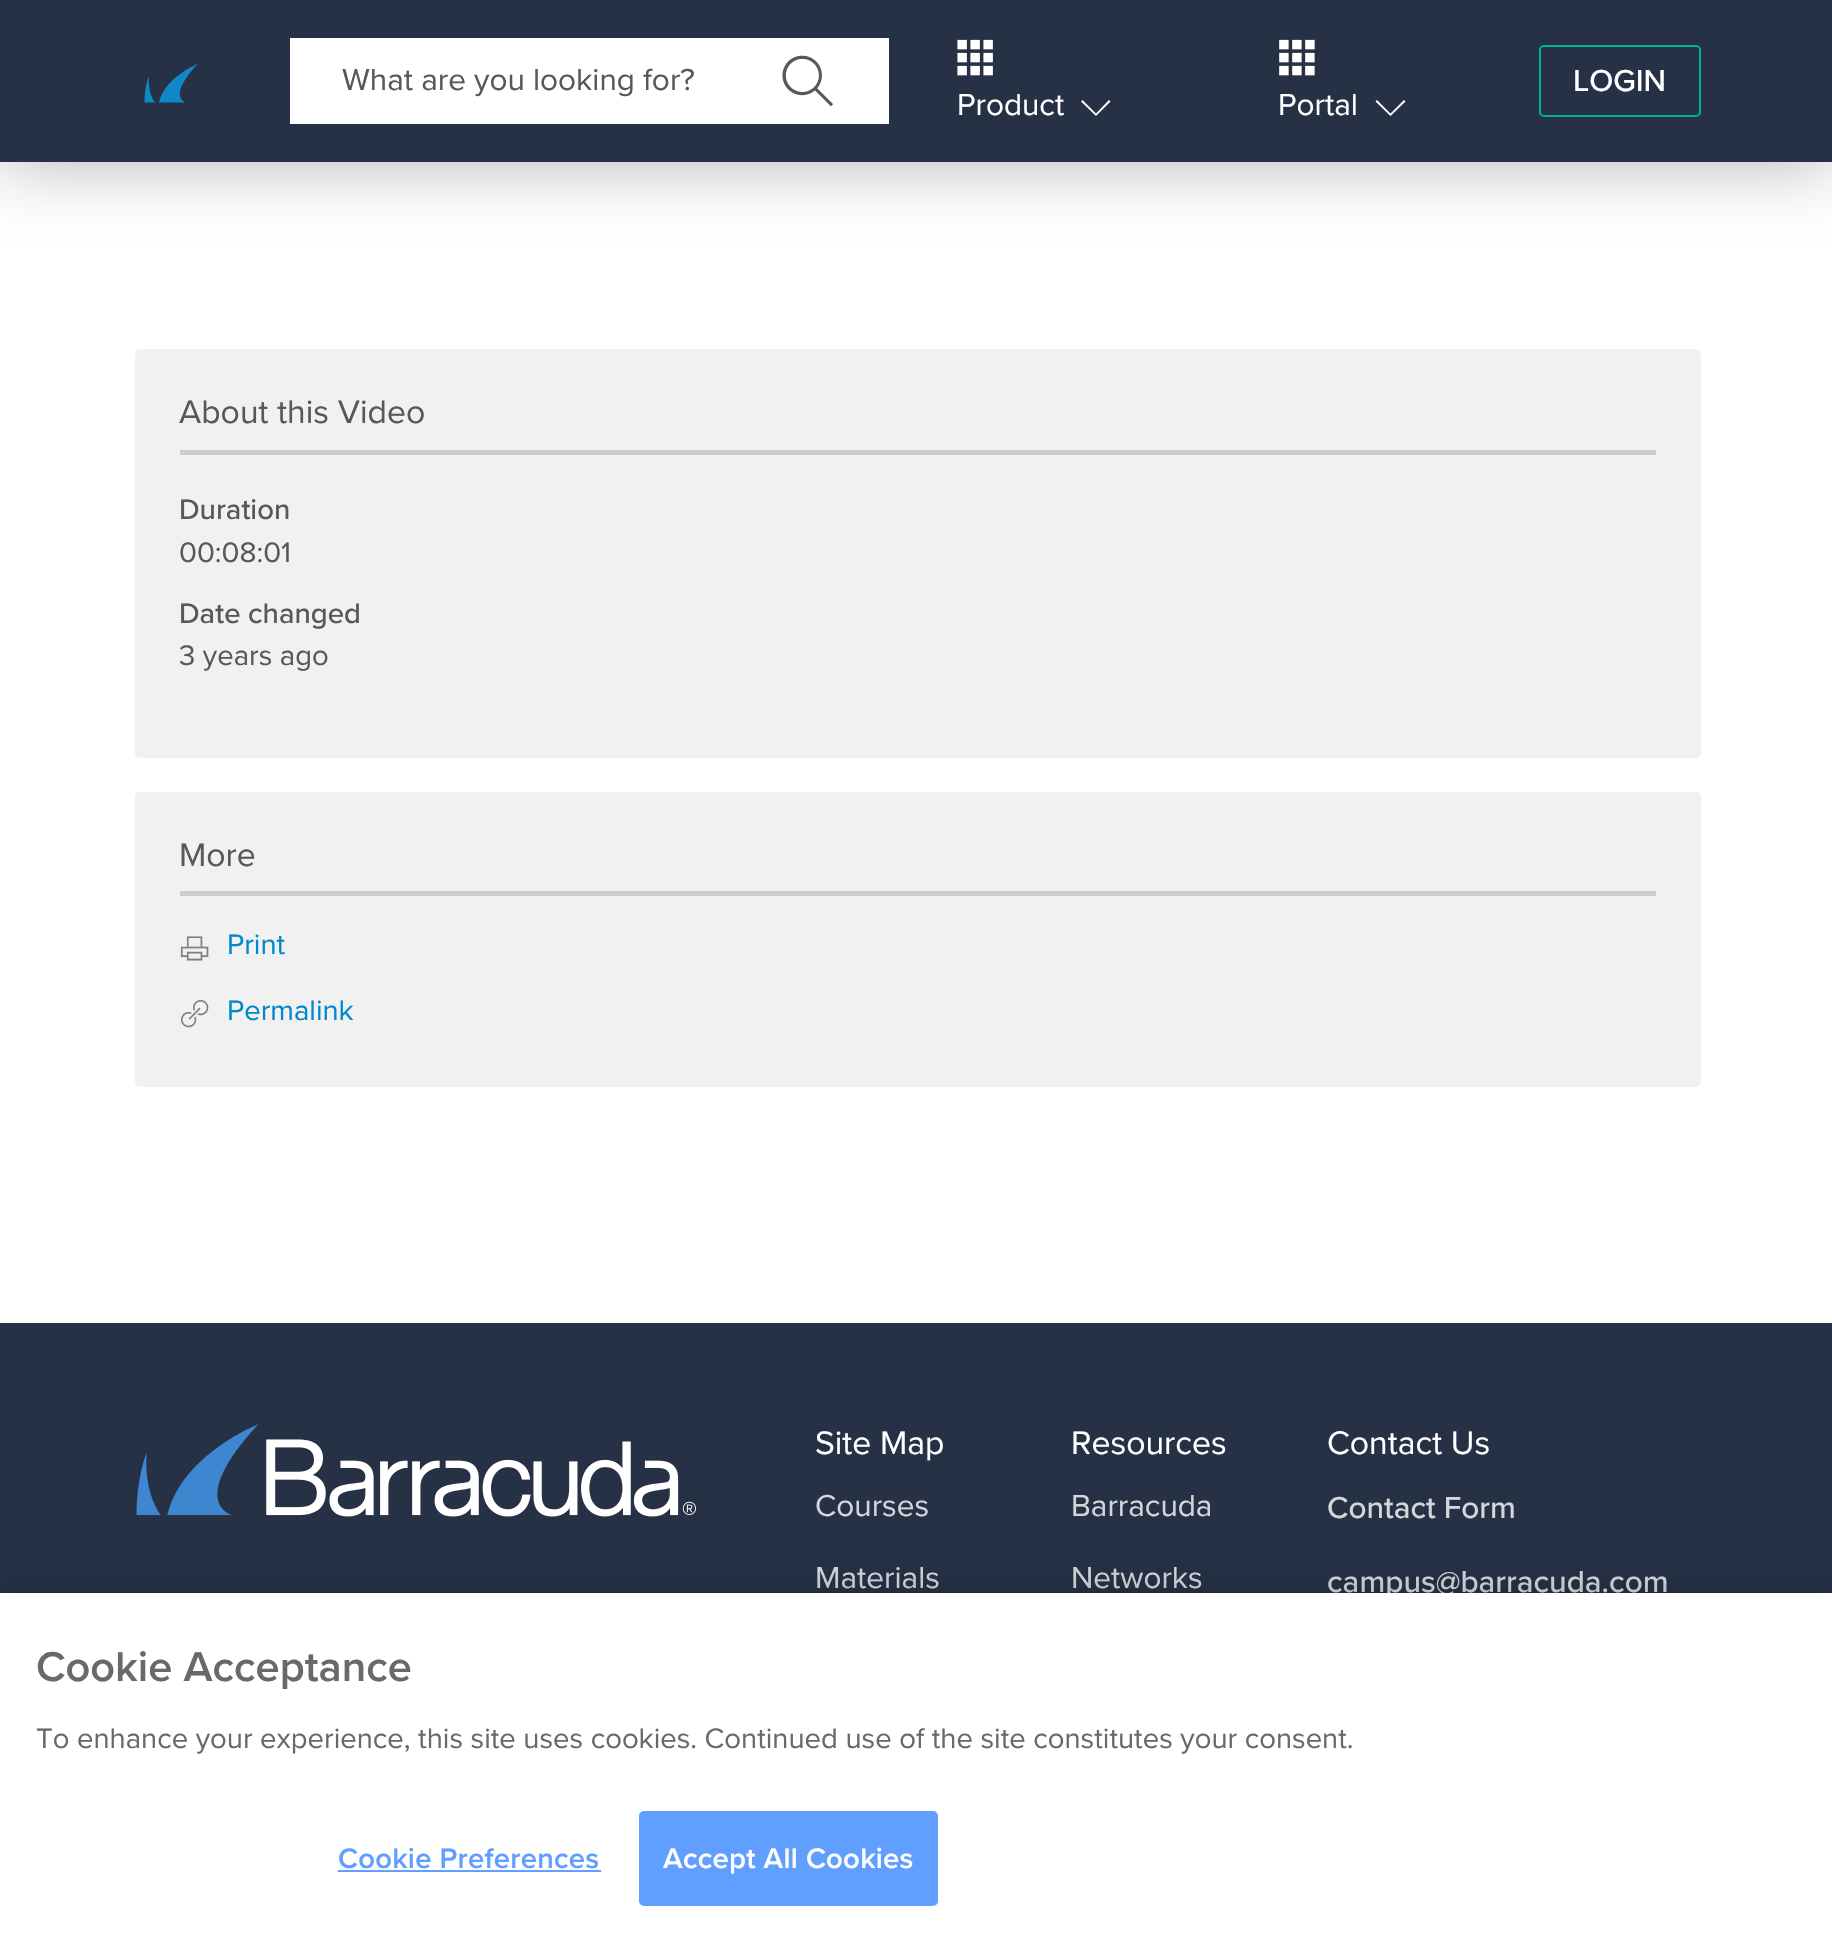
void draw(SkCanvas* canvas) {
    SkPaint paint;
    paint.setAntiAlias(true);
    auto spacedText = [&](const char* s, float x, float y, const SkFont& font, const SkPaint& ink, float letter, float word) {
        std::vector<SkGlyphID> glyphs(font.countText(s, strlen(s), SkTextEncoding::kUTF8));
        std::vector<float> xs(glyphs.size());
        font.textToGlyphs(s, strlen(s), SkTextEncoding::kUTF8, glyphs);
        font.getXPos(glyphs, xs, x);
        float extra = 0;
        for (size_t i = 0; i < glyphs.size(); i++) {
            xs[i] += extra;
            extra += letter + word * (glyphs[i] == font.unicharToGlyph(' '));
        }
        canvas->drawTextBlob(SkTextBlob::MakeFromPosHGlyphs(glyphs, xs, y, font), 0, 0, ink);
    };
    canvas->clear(0xFFFFFFFF);
    paint.setColor(0x4D000000);
    paint.setMaskFilter(SkMaskFilter::MakeBlur(kNormal_SkBlurStyle, 36));
    canvas->drawRect(SkRect::MakeXYWH(0, 0, 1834, 162), paint);
    paint.setMaskFilter(nullptr);
    paint.setColor(0xFF263146);
    canvas->drawRect(SkRect::MakeXYWH(0, 0, 1832, 162), paint);
    paint.setColor(0xFF0F87C9);
    canvas->drawPath(SkPathBuilder().moveTo(149, 76).cubicTo(149, 76, 144.5f, 86.5f, 144.5f, 102.5f).lineTo(155, 102.5f).cubicTo(155, 102.5f, 147.5f, 93.5f, 149, 76).moveTo(197.5f, 64).cubicTo(197.5f, 64, 165, 77, 159, 102.5f).lineTo(186, 102.5f).cubicTo(186, 102.5f, 166.5f, 97.5f, 197.5f, 64).detach(), paint);
    paint.setColor(0xFFFFFFFF);
    canvas->drawRect(SkRect::MakeXYWH(290, 38, 599, 86), paint);
    SkFont font1(fontMgr->matchFamilyStyle("Proxima Nova", SkFontStyle::Normal()), 31.5f);
    font1.setSubpixel(true);
    paint.setColor(0xFF55595C);
    canvas->drawString("What are you looking for?", 342, 90, font1, paint);
    canvas->drawImageRect(SkImages::DeferredFromEncodedData(SkData::MakeFromFileName("img1.png")), SkRect::MakeXYWH(782, 55, 51, 52), SkSamplingOptions());
    paint.setStyle(SkPaint::kStroke_Style);
    paint.setStrokeWidth(2);
    paint.setColor(0xFF00B098);
    canvas->drawRoundRect(SkRect::MakeXYWH(1540, 46, 160, 70), 4, 4, paint);
    SkFont font2(fontMgr->matchFamilyStyle("Proxima Nova", SkFontStyle(500, SkFontStyle::kNormal_Width, SkFontStyle::kUpright_Slant)), 31.5f);
    font2.setSubpixel(true);
    paint.setStyle(SkPaint::kFill_Style);
    paint.setColor(0xFFFFFFFF);
    canvas->drawString("LOGIN", 1573, 91, font2, paint);
    canvas->drawImageRect(SkImages::DeferredFromEncodedData(SkData::MakeFromFileName("img2.png")), SkRect::MakeXYWH(957, 39, 36, 37), SkSamplingOptions());
    canvas->drawString("Product", 957, 115, font1, paint);
    canvas->drawPath(SkPathBuilder().moveTo(1096, 116).lineTo(1081, 101.5f).lineTo(1082.5f, 100).lineTo(1096, 113.5f).lineTo(1109, 100).lineTo(1110.5f, 101.5f).close().detach(), paint);
    canvas->drawImageRect(SkImages::DeferredFromEncodedData(SkData::MakeFromFileName("img3.png")), SkRect::MakeXYWH(1279, 39, 36, 37), SkSamplingOptions());
    canvas->drawString("Portal", 1278, 115, font1, paint);
    canvas->drawPath(SkPathBuilder().moveTo(1390.5f, 116).lineTo(1375.5f, 101.5f).lineTo(1377, 100).lineTo(1390.5f, 113.5f).lineTo(1404, 100).lineTo(1405.5f, 101.5f).close().detach(), paint);
    paint.setColor(0xFFF1F1F1);
    canvas->drawRoundRect(SkRect::MakeXYWH(135, 349, 1566, 409), 5, 5, paint);
    paint.setColor(0xFFCDCDCD);
    canvas->drawRect(SkRect::MakeXYWH(180, 450, 1476, 5), paint);
    SkFont font3(fontMgr->matchFamilyStyle("Proxima Nova", SkFontStyle::Normal()), 33.75f);
    font3.setSubpixel(true);
    paint.setColor(0xFF55595C);
    canvas->drawString("About this Video", 179, 423, font3, paint);
    SkFont font4(fontMgr->matchFamilyStyle("Proxima Nova", SkFontStyle(500, SkFontStyle::kNormal_Width, SkFontStyle::kUpright_Slant)), 29.25f);
    font4.setSubpixel(true);
    canvas->drawString("Duration", 179, 519, font4, paint);
    SkFont font5(fontMgr->matchFamilyStyle("Proxima Nova", SkFontStyle::Normal()), 29.25f);
    font5.setSubpixel(true);
    canvas->drawString("00:08:01", 179, 562, font5, paint);
    canvas->drawString("Date changed", 179, 623, font4, paint);
    canvas->drawString("3 years ago", 179, 665, font5, paint);
    paint.setColor(0xFFF1F1F1);
    canvas->drawRoundRect(SkRect::MakeXYWH(135, 792, 1566, 295), 5, 5, paint);
    paint.setColor(0xFFCDCDCD);
    canvas->drawRect(SkRect::MakeXYWH(180, 891, 1476, 5), paint);
    paint.setColor(0xFF55595C);
    canvas->drawString("More", 179, 866, font3, paint);
    canvas->drawImageRect(SkImages::DeferredFromEncodedData(SkData::MakeFromFileName("img4.png")), SkRect::MakeXYWH(180, 936, 29, 25), SkSamplingOptions());
    paint.setColor(0xFF0088CE);
    canvas->drawString("Print", 227, 954, font5, paint);
    canvas->drawImageRect(SkImages::DeferredFromEncodedData(SkData::MakeFromFileName("img5.png")), SkRect::MakeXYWH(180, 999, 29, 29), SkSamplingOptions());
    canvas->drawString("Permalink", 227, 1020, font5, paint);
    paint.setColor(0xFF263146);
    canvas->drawRect(SkRect::MakeXYWH(0, 1323, 1832, 270), paint);
    canvas->drawImageRect(SkImages::DeferredFromEncodedData(SkData::MakeFromFileName("img6.png")), SkRect::MakeXYWH(136, 1424, 560, 93), SkSamplingOptions());
    paint.setColor(0xFFFFFFFF);
    canvas->drawString("Site Map", 815, 1454, font3, paint);
    paint.setColor(0xFFD4D6DA);
    canvas->drawString("Courses", 815, 1516, font1, paint);
    canvas->drawString("Materials", 815, 1588, font1, paint);
    paint.setColor(0xFFFFFFFF);
    canvas->drawString("Resources", 1071, 1454, font3, paint);
    paint.setColor(0xFFD4D6DA);
    canvas->drawString("Barracuda", 1071, 1516, font1, paint);
    canvas->drawString("Networks", 1071, 1588, font1, paint);
    paint.setColor(0xFFFFFFFF);
    canvas->drawString("Contact Us", 1327, 1454, font3, paint);
    paint.setColor(0xFFD4D6DA);
    canvas->drawString("Contact Form", 1327, 1518, font2, paint);
    canvas->drawString("campus@barracuda.com", 1327, 1592, font2, paint);
    paint.setColor(0x33000000);
    paint.setMaskFilter(SkMaskFilter::MakeBlur(kNormal_SkBlurStyle, 20));
    canvas->drawRect(SkRect::MakeXYWH(0, 1593, 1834, 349), paint);
    paint.setMaskFilter(nullptr);
    paint.setColor(0xFFFFFFFF);
    canvas->drawRect(SkRect::MakeXYWH(0, 1593, 1832, 348), paint);
    SkFont font6(fontMgr->matchFamilyStyle("Proxima Nova", SkFontStyle(600, SkFontStyle::kNormal_Width, SkFontStyle::kUpright_Slant)), 43.25f);
    font6.setSubpixel(true);
    paint.setColor(0xFF696969);
    canvas->drawString("Cookie Acceptance", 36, 1681, font6, paint);
    canvas->drawString("To enhance your experience, this site uses cookies. Continued use of the site constitutes your consent.", 36, 1748, font5, paint);
    SkFont font7(fontMgr->matchFamilyStyle("Proxima Nova", SkFontStyle(600, SkFontStyle::kNormal_Width, SkFontStyle::kUpright_Slant)), 29.25f);
    font7.setSubpixel(true);
    paint.setColor(0xFF609FFF);
    spacedText("Cookie Preferences", 338, 1868, font7, paint, 0.25f, 0);
    canvas->drawRect(SkRect::MakeXYWH(338, 1870, 263, 2), paint);
    canvas->drawRoundRect(SkRect::MakeXYWH(640, 1812, 297, 93), 4, 4, paint);
    paint.setStyle(SkPaint::kStroke_Style);
    canvas->drawRoundRect(SkRect::MakeXYWH(640, 1812, 297, 93), 4, 4, paint);
    paint.setStyle(SkPaint::kFill_Style);
    paint.setColor(0xFFFFFFFF);
    spacedText("Accept All Cookies", 663, 1868, font7, paint, 0.25f, 0);
}
